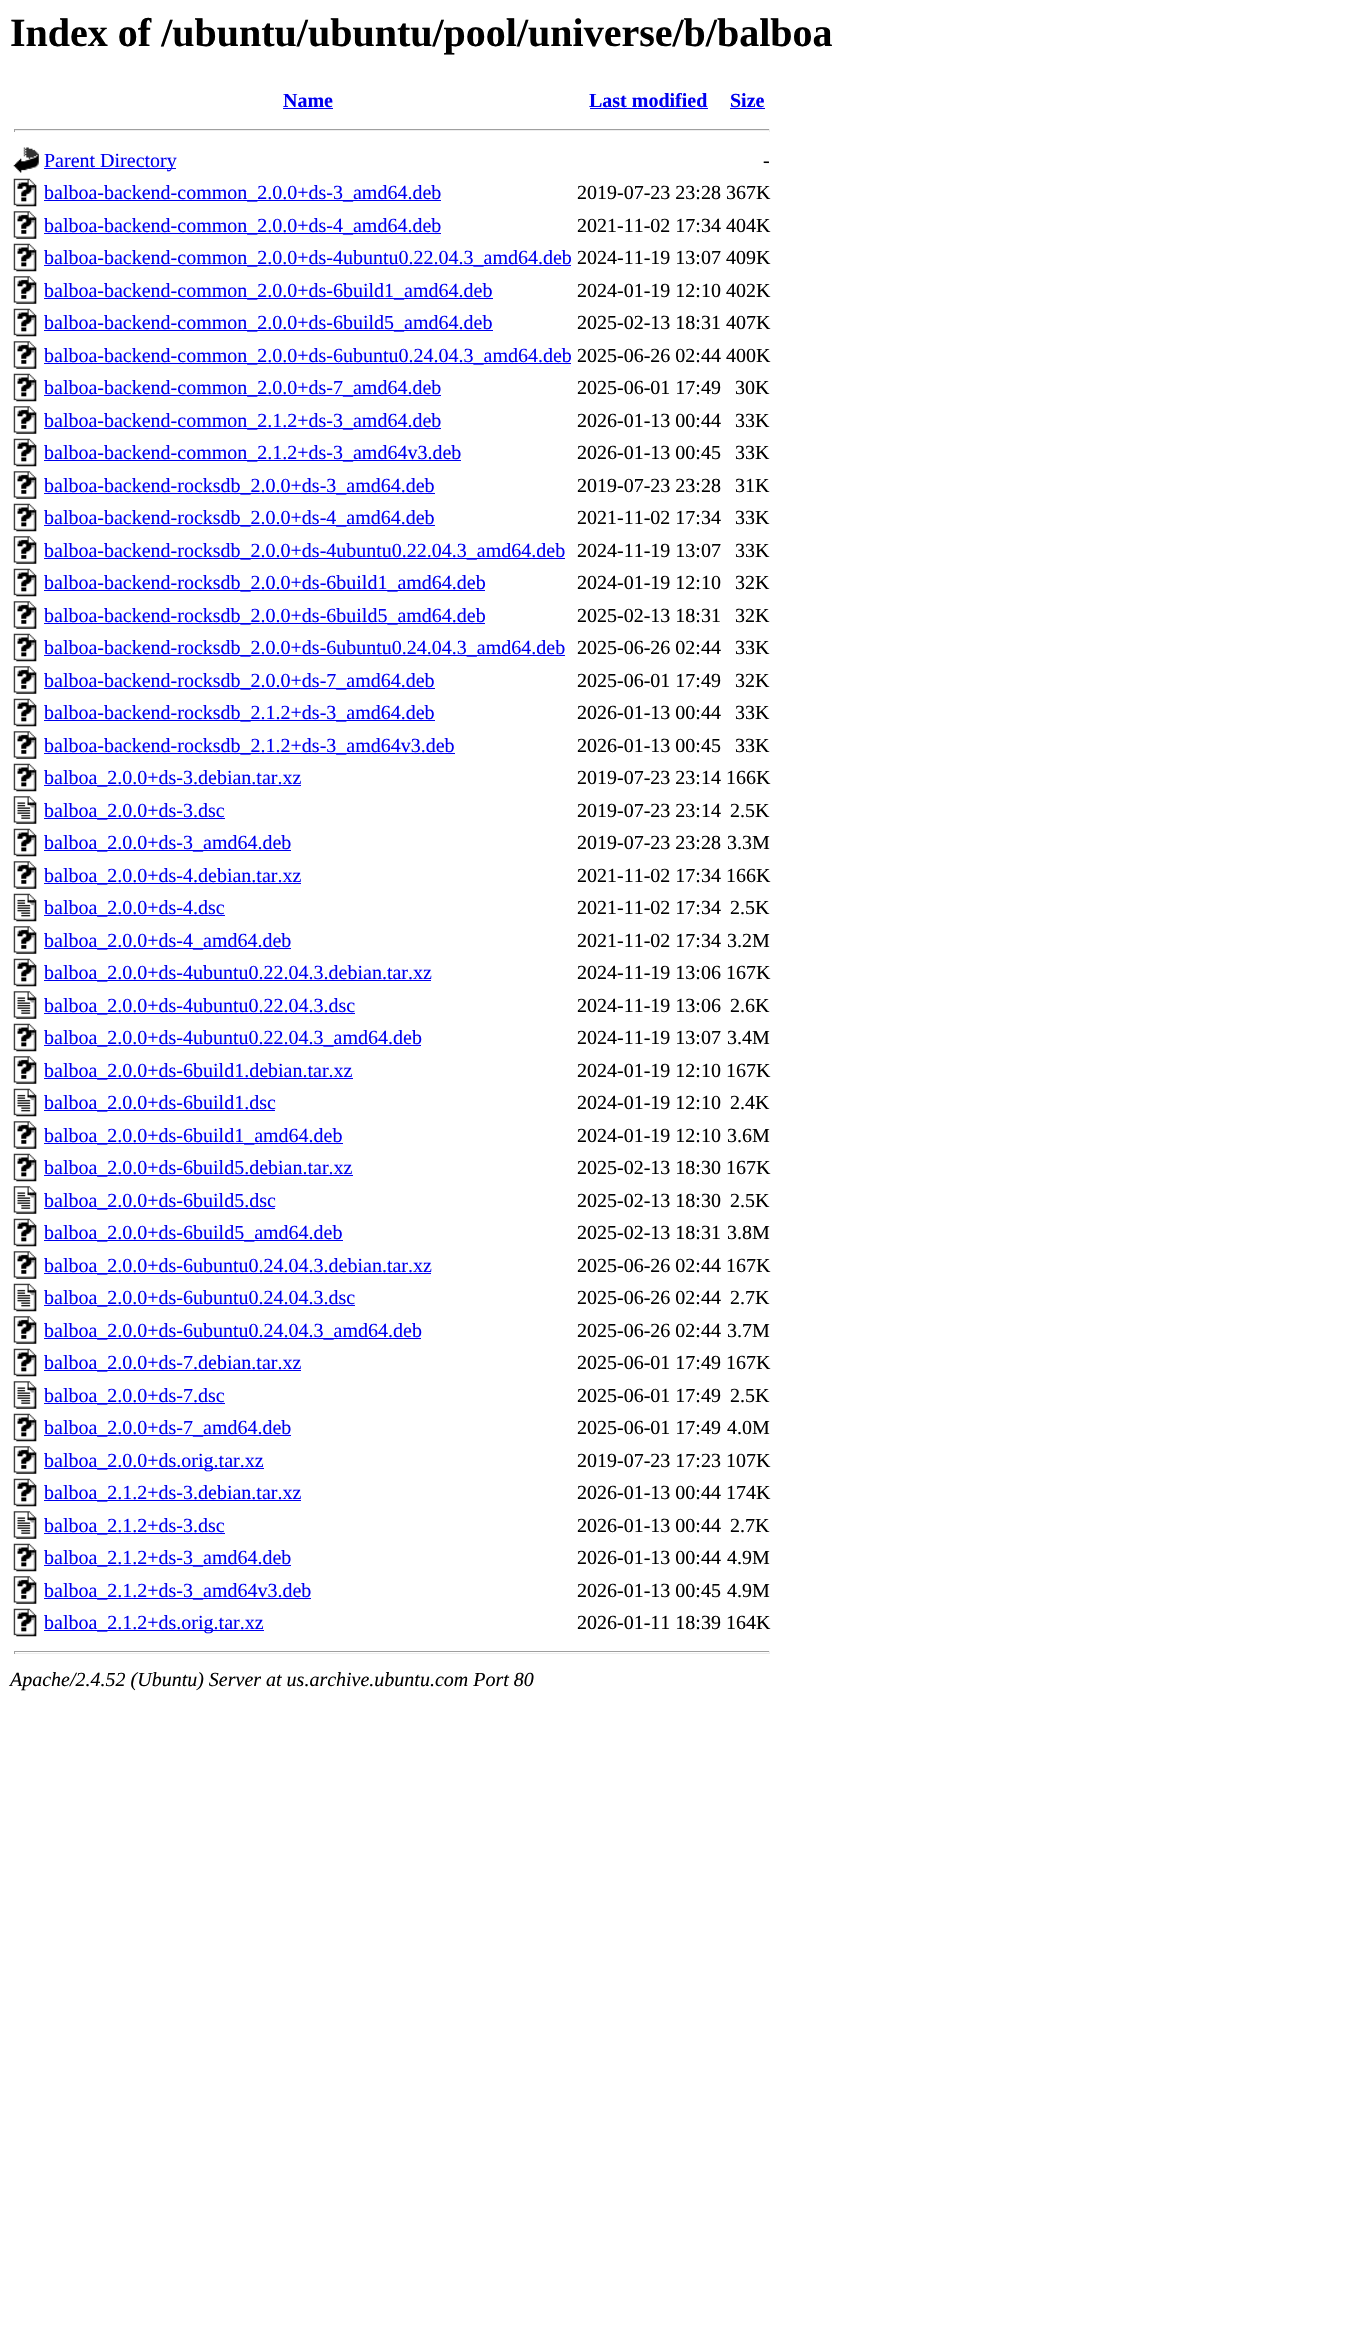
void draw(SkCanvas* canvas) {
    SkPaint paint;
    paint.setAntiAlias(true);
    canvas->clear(0xFFFFFFFF);
    SkFont font1(fontMgr->matchFamilyStyle("Liberation Serif", SkFontStyle::Bold()), 40);
    font1.setSubpixel(true);
    paint.setColor(0xFF000000);
    canvas->drawString("Index of /ubuntu/ubuntu/pool/universe/b/balboa", 10, 46, font1, paint);
    SkFont font2(fontMgr->matchFamilyStyle("Liberation Serif", SkFontStyle::Bold()), 20);
    font2.setSubpixel(true);
    paint.setColor(0xFF0000EE);
    canvas->drawString("Name", 283, 107, font2, paint);
    canvas->drawRect(SkRect::MakeXYWH(283, 108, 50, 1), paint);
    canvas->drawString("Last modified", 589, 107, font2, paint);
    canvas->drawRect(SkRect::MakeXYWH(590, 108, 118, 1), paint);
    canvas->drawString("Size", 730, 107, font2, paint);
    canvas->drawRect(SkRect::MakeXYWH(730, 108, 35, 1), paint);
    paint.setColor(0xFF9F9F9F);
    canvas->drawRect(SkRect::MakeXYWH(14, 129, 756, 1), paint);
    paint.setColor(0xFFEEEEEE);
    canvas->drawRect(SkRect::MakeXYWH(769, 129, 1, 3), paint);
    canvas->drawRect(SkRect::MakeXYWH(14, 130, 756, 1), paint);
    paint.setColor(0xFF9F9F9F);
    canvas->drawRect(SkRect::MakeXYWH(14, 129, 1, 3), paint);
    canvas->drawImageRect(SkImages::DeferredFromEncodedData(SkData::MakeFromFileName("img1.png")), SkRect::MakeXYWH(13, 147, 26, 26), SkSamplingOptions());
    paint.setColor(0xFF0000EE);
    canvas->drawRect(SkRect::MakeXYWH(44, 168, 132, 1), paint);
    SkFont font3(fontMgr->matchFamilyStyle("Liberation Serif", SkFontStyle::Normal()), 20);
    font3.setSubpixel(true);
    canvas->drawString("Parent Directory", 44, 167, font3, paint);
    paint.setColor(0xFF000000);
    canvas->drawString("-", 763, 167, font3, paint);
    canvas->drawImageRect(SkImages::DeferredFromEncodedData(SkData::MakeFromFileName("img2.png")), SkRect::MakeXYWH(13, 178, 24, 29), SkSamplingOptions());
    paint.setColor(0xFF0000EE);
    canvas->drawRect(SkRect::MakeXYWH(44, 200, 397, 1), paint);
    canvas->drawString("balboa-backend-common_2.0.0+ds-3_amd64.deb", 44, 199, font3, paint);
    paint.setColor(0xFF000000);
    canvas->drawString("2019-07-23 23:28 367K", 577, 199, font3, paint);
    canvas->drawImageRect(SkImages::DeferredFromEncodedData(SkData::MakeFromFileName("img3.png")), SkRect::MakeXYWH(13, 211, 24, 28), SkSamplingOptions());
    paint.setColor(0xFF0000EE);
    canvas->drawRect(SkRect::MakeXYWH(44, 233, 397, 1), paint);
    canvas->drawString("balboa-backend-common_2.0.0+ds-4_amd64.deb", 44, 232, font3, paint);
    paint.setColor(0xFF000000);
    canvas->drawString("2021-11-02 17:34 404K", 577, 232, font3, paint);
    canvas->drawImageRect(SkImages::DeferredFromEncodedData(SkData::MakeFromFileName("img2.png")), SkRect::MakeXYWH(13, 243, 24, 29), SkSamplingOptions());
    paint.setColor(0xFF0000EE);
    canvas->drawRect(SkRect::MakeXYWH(44, 265, 527, 1), paint);
    canvas->drawString("balboa-backend-common_2.0.0+ds-4ubuntu0.22.04.3_amd64.deb", 44, 264, font3, paint);
    paint.setColor(0xFF000000);
    canvas->drawString("2024-11-19 13:07 409K", 577, 264, font3, paint);
    canvas->drawImageRect(SkImages::DeferredFromEncodedData(SkData::MakeFromFileName("img4.png")), SkRect::MakeXYWH(13, 276, 24, 28), SkSamplingOptions());
    paint.setColor(0xFF0000EE);
    canvas->drawRect(SkRect::MakeXYWH(44, 298, 449, 1), paint);
    canvas->drawString("balboa-backend-common_2.0.0+ds-6build1_amd64.deb", 44, 297, font3, paint);
    paint.setColor(0xFF000000);
    canvas->drawString("2024-01-19 12:10 402K", 577, 297, font3, paint);
    canvas->drawImageRect(SkImages::DeferredFromEncodedData(SkData::MakeFromFileName("img2.png")), SkRect::MakeXYWH(13, 308, 24, 29), SkSamplingOptions());
    paint.setColor(0xFF0000EE);
    canvas->drawRect(SkRect::MakeXYWH(44, 330, 449, 1), paint);
    canvas->drawString("balboa-backend-common_2.0.0+ds-6build5_amd64.deb", 44, 329, font3, paint);
    paint.setColor(0xFF000000);
    canvas->drawString("2025-02-13 18:31 407K", 577, 329, font3, paint);
    canvas->drawImageRect(SkImages::DeferredFromEncodedData(SkData::MakeFromFileName("img3.png")), SkRect::MakeXYWH(13, 341, 24, 28), SkSamplingOptions());
    paint.setColor(0xFF0000EE);
    canvas->drawRect(SkRect::MakeXYWH(44, 363, 527, 1), paint);
    canvas->drawString("balboa-backend-common_2.0.0+ds-6ubuntu0.24.04.3_amd64.deb", 44, 362, font3, paint);
    paint.setColor(0xFF000000);
    canvas->drawString("2025-06-26 02:44 400K", 577, 362, font3, paint);
    canvas->drawImageRect(SkImages::DeferredFromEncodedData(SkData::MakeFromFileName("img2.png")), SkRect::MakeXYWH(13, 373, 24, 29), SkSamplingOptions());
    paint.setColor(0xFF0000EE);
    canvas->drawRect(SkRect::MakeXYWH(44, 395, 397, 1), paint);
    canvas->drawString("balboa-backend-common_2.0.0+ds-7_amd64.deb", 44, 394, font3, paint);
    paint.setColor(0xFF000000);
    canvas->drawString("2025-06-01 17:49", 577, 394, font3, paint);
    canvas->drawString("30K", 735, 394, font3, paint);
    canvas->drawImageRect(SkImages::DeferredFromEncodedData(SkData::MakeFromFileName("img3.png")), SkRect::MakeXYWH(13, 406, 24, 28), SkSamplingOptions());
    paint.setColor(0xFF0000EE);
    canvas->drawRect(SkRect::MakeXYWH(44, 428, 397, 1), paint);
    canvas->drawString("balboa-backend-common_2.1.2+ds-3_amd64.deb", 44, 427, font3, paint);
    paint.setColor(0xFF000000);
    canvas->drawString("2026-01-13 00:44", 577, 427, font3, paint);
    canvas->drawString("33K", 735, 427, font3, paint);
    canvas->drawImageRect(SkImages::DeferredFromEncodedData(SkData::MakeFromFileName("img2.png")), SkRect::MakeXYWH(13, 438, 24, 29), SkSamplingOptions());
    paint.setColor(0xFF0000EE);
    canvas->drawRect(SkRect::MakeXYWH(44, 460, 417, 1), paint);
    canvas->drawString("balboa-backend-common_2.1.2+ds-3_amd64v3.deb", 44, 459, font3, paint);
    paint.setColor(0xFF000000);
    canvas->drawString("2026-01-13 00:45", 577, 459, font3, paint);
    canvas->drawString("33K", 735, 459, font3, paint);
    canvas->drawImageRect(SkImages::DeferredFromEncodedData(SkData::MakeFromFileName("img3.png")), SkRect::MakeXYWH(13, 471, 24, 28), SkSamplingOptions());
    paint.setColor(0xFF0000EE);
    canvas->drawRect(SkRect::MakeXYWH(44, 493, 391, 1), paint);
    canvas->drawString("balboa-backend-rocksdb_2.0.0+ds-3_amd64.deb", 44, 492, font3, paint);
    paint.setColor(0xFF000000);
    canvas->drawString("2019-07-23 23:28", 577, 492, font3, paint);
    canvas->drawString("31K", 735, 492, font3, paint);
    canvas->drawImageRect(SkImages::DeferredFromEncodedData(SkData::MakeFromFileName("img2.png")), SkRect::MakeXYWH(13, 503, 24, 29), SkSamplingOptions());
    paint.setColor(0xFF0000EE);
    canvas->drawRect(SkRect::MakeXYWH(44, 525, 391, 1), paint);
    canvas->drawString("balboa-backend-rocksdb_2.0.0+ds-4_amd64.deb", 44, 524, font3, paint);
    paint.setColor(0xFF000000);
    canvas->drawString("2021-11-02 17:34", 577, 524, font3, paint);
    canvas->drawString("33K", 735, 524, font3, paint);
    canvas->drawImageRect(SkImages::DeferredFromEncodedData(SkData::MakeFromFileName("img3.png")), SkRect::MakeXYWH(13, 536, 24, 28), SkSamplingOptions());
    paint.setColor(0xFF0000EE);
    canvas->drawRect(SkRect::MakeXYWH(44, 558, 521, 1), paint);
    canvas->drawString("balboa-backend-rocksdb_2.0.0+ds-4ubuntu0.22.04.3_amd64.deb", 44, 557, font3, paint);
    paint.setColor(0xFF000000);
    canvas->drawString("2024-11-19 13:07", 577, 557, font3, paint);
    canvas->drawString("33K", 735, 557, font3, paint);
    canvas->drawImageRect(SkImages::DeferredFromEncodedData(SkData::MakeFromFileName("img2.png")), SkRect::MakeXYWH(13, 568, 24, 29), SkSamplingOptions());
    paint.setColor(0xFF0000EE);
    canvas->drawRect(SkRect::MakeXYWH(44, 590, 441, 1), paint);
    canvas->drawString("balboa-backend-rocksdb_2.0.0+ds-6build1_amd64.deb", 44, 589, font3, paint);
    paint.setColor(0xFF000000);
    canvas->drawString("2024-01-19 12:10", 577, 589, font3, paint);
    canvas->drawString("32K", 735, 589, font3, paint);
    canvas->drawImageRect(SkImages::DeferredFromEncodedData(SkData::MakeFromFileName("img3.png")), SkRect::MakeXYWH(13, 601, 24, 28), SkSamplingOptions());
    paint.setColor(0xFF0000EE);
    canvas->drawRect(SkRect::MakeXYWH(44, 623, 441, 1), paint);
    canvas->drawString("balboa-backend-rocksdb_2.0.0+ds-6build5_amd64.deb", 44, 622, font3, paint);
    paint.setColor(0xFF000000);
    canvas->drawString("2025-02-13 18:31", 577, 622, font3, paint);
    canvas->drawString("32K", 735, 622, font3, paint);
    canvas->drawImageRect(SkImages::DeferredFromEncodedData(SkData::MakeFromFileName("img2.png")), SkRect::MakeXYWH(13, 633, 24, 29), SkSamplingOptions());
    paint.setColor(0xFF0000EE);
    canvas->drawRect(SkRect::MakeXYWH(44, 655, 521, 1), paint);
    canvas->drawString("balboa-backend-rocksdb_2.0.0+ds-6ubuntu0.24.04.3_amd64.deb", 44, 654, font3, paint);
    paint.setColor(0xFF000000);
    canvas->drawString("2025-06-26 02:44", 577, 654, font3, paint);
    canvas->drawString("33K", 735, 654, font3, paint);
    canvas->drawImageRect(SkImages::DeferredFromEncodedData(SkData::MakeFromFileName("img3.png")), SkRect::MakeXYWH(13, 666, 24, 28), SkSamplingOptions());
    paint.setColor(0xFF0000EE);
    canvas->drawRect(SkRect::MakeXYWH(44, 688, 391, 1), paint);
    canvas->drawString("balboa-backend-rocksdb_2.0.0+ds-7_amd64.deb", 44, 687, font3, paint);
    paint.setColor(0xFF000000);
    canvas->drawString("2025-06-01 17:49", 577, 687, font3, paint);
    canvas->drawString("32K", 735, 687, font3, paint);
    canvas->drawImageRect(SkImages::DeferredFromEncodedData(SkData::MakeFromFileName("img2.png")), SkRect::MakeXYWH(13, 698, 24, 29), SkSamplingOptions());
    paint.setColor(0xFF0000EE);
    canvas->drawRect(SkRect::MakeXYWH(44, 720, 391, 1), paint);
    canvas->drawString("balboa-backend-rocksdb_2.1.2+ds-3_amd64.deb", 44, 719, font3, paint);
    paint.setColor(0xFF000000);
    canvas->drawString("2026-01-13 00:44", 577, 719, font3, paint);
    canvas->drawString("33K", 735, 719, font3, paint);
    canvas->drawImageRect(SkImages::DeferredFromEncodedData(SkData::MakeFromFileName("img3.png")), SkRect::MakeXYWH(13, 731, 24, 28), SkSamplingOptions());
    paint.setColor(0xFF0000EE);
    canvas->drawRect(SkRect::MakeXYWH(44, 753, 411, 1), paint);
    canvas->drawString("balboa-backend-rocksdb_2.1.2+ds-3_amd64v3.deb", 44, 752, font3, paint);
    paint.setColor(0xFF000000);
    canvas->drawString("2026-01-13 00:45", 577, 752, font3, paint);
    canvas->drawString("33K", 735, 752, font3, paint);
    canvas->drawImageRect(SkImages::DeferredFromEncodedData(SkData::MakeFromFileName("img2.png")), SkRect::MakeXYWH(13, 763, 24, 29), SkSamplingOptions());
    paint.setColor(0xFF0000EE);
    canvas->drawRect(SkRect::MakeXYWH(44, 785, 257, 1), paint);
    canvas->drawString("balboa_2.0.0+ds-3.debian.tar.xz", 44, 784, font3, paint);
    paint.setColor(0xFF000000);
    canvas->drawString("2019-07-23 23:14 166K", 577, 784, font3, paint);
    canvas->drawImageRect(SkImages::DeferredFromEncodedData(SkData::MakeFromFileName("img5.png")), SkRect::MakeXYWH(13, 796, 24, 28), SkSamplingOptions());
    paint.setColor(0xFF0000EE);
    canvas->drawRect(SkRect::MakeXYWH(44, 818, 181, 1), paint);
    canvas->drawString("balboa_2.0.0+ds-3.dsc", 44, 817, font3, paint);
    paint.setColor(0xFF000000);
    canvas->drawString("2019-07-23 23:14", 577, 817, font3, paint);
    canvas->drawString("2.5K", 730, 817, font3, paint);
    canvas->drawImageRect(SkImages::DeferredFromEncodedData(SkData::MakeFromFileName("img2.png")), SkRect::MakeXYWH(13, 828, 24, 29), SkSamplingOptions());
    paint.setColor(0xFF0000EE);
    canvas->drawRect(SkRect::MakeXYWH(44, 850, 247, 1), paint);
    canvas->drawString("balboa_2.0.0+ds-3_amd64.deb", 44, 849, font3, paint);
    paint.setColor(0xFF000000);
    canvas->drawString("2019-07-23 23:28", 577, 849, font3, paint);
    canvas->drawString("3.3M", 727, 849, font3, paint);
    canvas->drawImageRect(SkImages::DeferredFromEncodedData(SkData::MakeFromFileName("img3.png")), SkRect::MakeXYWH(13, 861, 24, 28), SkSamplingOptions());
    paint.setColor(0xFF0000EE);
    canvas->drawRect(SkRect::MakeXYWH(44, 883, 257, 1), paint);
    canvas->drawString("balboa_2.0.0+ds-4.debian.tar.xz", 44, 882, font3, paint);
    paint.setColor(0xFF000000);
    canvas->drawString("2021-11-02 17:34 166K", 577, 882, font3, paint);
    canvas->drawImageRect(SkImages::DeferredFromEncodedData(SkData::MakeFromFileName("img6.png")), SkRect::MakeXYWH(13, 893, 24, 29), SkSamplingOptions());
    paint.setColor(0xFF0000EE);
    canvas->drawRect(SkRect::MakeXYWH(44, 915, 181, 1), paint);
    canvas->drawString("balboa_2.0.0+ds-4.dsc", 44, 914, font3, paint);
    paint.setColor(0xFF000000);
    canvas->drawString("2021-11-02 17:34", 577, 914, font3, paint);
    canvas->drawString("2.5K", 730, 914, font3, paint);
    canvas->drawImageRect(SkImages::DeferredFromEncodedData(SkData::MakeFromFileName("img3.png")), SkRect::MakeXYWH(13, 926, 24, 28), SkSamplingOptions());
    paint.setColor(0xFF0000EE);
    canvas->drawRect(SkRect::MakeXYWH(44, 948, 247, 1), paint);
    canvas->drawString("balboa_2.0.0+ds-4_amd64.deb", 44, 947, font3, paint);
    paint.setColor(0xFF000000);
    canvas->drawString("2021-11-02 17:34", 577, 947, font3, paint);
    canvas->drawString("3.2M", 727, 947, font3, paint);
    canvas->drawImageRect(SkImages::DeferredFromEncodedData(SkData::MakeFromFileName("img2.png")), SkRect::MakeXYWH(13, 958, 24, 29), SkSamplingOptions());
    paint.setColor(0xFF0000EE);
    canvas->drawRect(SkRect::MakeXYWH(44, 980, 387, 1), paint);
    canvas->drawString("balboa_2.0.0+ds-4ubuntu0.22.04.3.debian.tar.xz", 44, 979, font3, paint);
    paint.setColor(0xFF000000);
    canvas->drawString("2024-11-19 13:06 167K", 577, 979, font3, paint);
    canvas->drawImageRect(SkImages::DeferredFromEncodedData(SkData::MakeFromFileName("img5.png")), SkRect::MakeXYWH(13, 991, 24, 28), SkSamplingOptions());
    paint.setColor(0xFF0000EE);
    canvas->drawRect(SkRect::MakeXYWH(44, 1013, 311, 1), paint);
    canvas->drawString("balboa_2.0.0+ds-4ubuntu0.22.04.3.dsc", 44, 1012, font3, paint);
    paint.setColor(0xFF000000);
    canvas->drawString("2024-11-19 13:06", 577, 1012, font3, paint);
    canvas->drawString("2.6K", 730, 1012, font3, paint);
    canvas->drawImageRect(SkImages::DeferredFromEncodedData(SkData::MakeFromFileName("img7.png")), SkRect::MakeXYWH(13, 1023, 24, 29), SkSamplingOptions());
    paint.setColor(0xFF0000EE);
    canvas->drawRect(SkRect::MakeXYWH(44, 1045, 377, 1), paint);
    canvas->drawString("balboa_2.0.0+ds-4ubuntu0.22.04.3_amd64.deb", 44, 1044, font3, paint);
    paint.setColor(0xFF000000);
    canvas->drawString("2024-11-19 13:07", 577, 1044, font3, paint);
    canvas->drawString("3.4M", 727, 1044, font3, paint);
    canvas->drawImageRect(SkImages::DeferredFromEncodedData(SkData::MakeFromFileName("img3.png")), SkRect::MakeXYWH(13, 1056, 24, 28), SkSamplingOptions());
    paint.setColor(0xFF0000EE);
    canvas->drawRect(SkRect::MakeXYWH(44, 1078, 309, 1), paint);
    canvas->drawString("balboa_2.0.0+ds-6build1.debian.tar.xz", 44, 1077, font3, paint);
    paint.setColor(0xFF000000);
    canvas->drawString("2024-01-19 12:10 167K", 577, 1077, font3, paint);
    canvas->drawImageRect(SkImages::DeferredFromEncodedData(SkData::MakeFromFileName("img6.png")), SkRect::MakeXYWH(13, 1088, 24, 29), SkSamplingOptions());
    paint.setColor(0xFF0000EE);
    canvas->drawRect(SkRect::MakeXYWH(44, 1110, 231, 1), paint);
    canvas->drawString("balboa_2.0.0+ds-6build1.dsc", 44, 1109, font3, paint);
    paint.setColor(0xFF000000);
    canvas->drawString("2024-01-19 12:10", 577, 1109, font3, paint);
    canvas->drawString("2.4K", 730, 1109, font3, paint);
    canvas->drawImageRect(SkImages::DeferredFromEncodedData(SkData::MakeFromFileName("img3.png")), SkRect::MakeXYWH(13, 1121, 24, 28), SkSamplingOptions());
    paint.setColor(0xFF0000EE);
    canvas->drawRect(SkRect::MakeXYWH(44, 1143, 299, 1), paint);
    canvas->drawString("balboa_2.0.0+ds-6build1_amd64.deb", 44, 1142, font3, paint);
    paint.setColor(0xFF000000);
    canvas->drawString("2024-01-19 12:10", 577, 1142, font3, paint);
    canvas->drawString("3.6M", 727, 1142, font3, paint);
    canvas->drawImageRect(SkImages::DeferredFromEncodedData(SkData::MakeFromFileName("img2.png")), SkRect::MakeXYWH(13, 1153, 24, 29), SkSamplingOptions());
    paint.setColor(0xFF0000EE);
    canvas->drawRect(SkRect::MakeXYWH(44, 1175, 309, 1), paint);
    canvas->drawString("balboa_2.0.0+ds-6build5.debian.tar.xz", 44, 1174, font3, paint);
    paint.setColor(0xFF000000);
    canvas->drawString("2025-02-13 18:30 167K", 577, 1174, font3, paint);
    canvas->drawImageRect(SkImages::DeferredFromEncodedData(SkData::MakeFromFileName("img5.png")), SkRect::MakeXYWH(13, 1186, 24, 28), SkSamplingOptions());
    paint.setColor(0xFF0000EE);
    canvas->drawRect(SkRect::MakeXYWH(44, 1208, 231, 1), paint);
    canvas->drawString("balboa_2.0.0+ds-6build5.dsc", 44, 1207, font3, paint);
    paint.setColor(0xFF000000);
    canvas->drawString("2025-02-13 18:30", 577, 1207, font3, paint);
    canvas->drawString("2.5K", 730, 1207, font3, paint);
    canvas->drawImageRect(SkImages::DeferredFromEncodedData(SkData::MakeFromFileName("img2.png")), SkRect::MakeXYWH(13, 1218, 24, 29), SkSamplingOptions());
    paint.setColor(0xFF0000EE);
    canvas->drawRect(SkRect::MakeXYWH(44, 1240, 299, 1), paint);
    canvas->drawString("balboa_2.0.0+ds-6build5_amd64.deb", 44, 1239, font3, paint);
    paint.setColor(0xFF000000);
    canvas->drawString("2025-02-13 18:31", 577, 1239, font3, paint);
    canvas->drawString("3.8M", 727, 1239, font3, paint);
    canvas->drawImageRect(SkImages::DeferredFromEncodedData(SkData::MakeFromFileName("img3.png")), SkRect::MakeXYWH(13, 1251, 24, 28), SkSamplingOptions());
    paint.setColor(0xFF0000EE);
    canvas->drawRect(SkRect::MakeXYWH(44, 1273, 387, 1), paint);
    canvas->drawString("balboa_2.0.0+ds-6ubuntu0.24.04.3.debian.tar.xz", 44, 1272, font3, paint);
    paint.setColor(0xFF000000);
    canvas->drawString("2025-06-26 02:44 167K", 577, 1272, font3, paint);
    canvas->drawImageRect(SkImages::DeferredFromEncodedData(SkData::MakeFromFileName("img6.png")), SkRect::MakeXYWH(13, 1283, 24, 29), SkSamplingOptions());
    paint.setColor(0xFF0000EE);
    canvas->drawRect(SkRect::MakeXYWH(44, 1305, 311, 1), paint);
    canvas->drawString("balboa_2.0.0+ds-6ubuntu0.24.04.3.dsc", 44, 1304, font3, paint);
    paint.setColor(0xFF000000);
    canvas->drawString("2025-06-26 02:44", 577, 1304, font3, paint);
    canvas->drawString("2.7K", 730, 1304, font3, paint);
    canvas->drawImageRect(SkImages::DeferredFromEncodedData(SkData::MakeFromFileName("img3.png")), SkRect::MakeXYWH(13, 1316, 24, 28), SkSamplingOptions());
    paint.setColor(0xFF0000EE);
    canvas->drawRect(SkRect::MakeXYWH(44, 1338, 377, 1), paint);
    canvas->drawString("balboa_2.0.0+ds-6ubuntu0.24.04.3_amd64.deb", 44, 1337, font3, paint);
    paint.setColor(0xFF000000);
    canvas->drawString("2025-06-26 02:44", 577, 1337, font3, paint);
    canvas->drawString("3.7M", 727, 1337, font3, paint);
    canvas->drawImageRect(SkImages::DeferredFromEncodedData(SkData::MakeFromFileName("img2.png")), SkRect::MakeXYWH(13, 1348, 24, 29), SkSamplingOptions());
    paint.setColor(0xFF0000EE);
    canvas->drawRect(SkRect::MakeXYWH(44, 1370, 257, 1), paint);
    canvas->drawString("balboa_2.0.0+ds-7.debian.tar.xz", 44, 1369, font3, paint);
    paint.setColor(0xFF000000);
    canvas->drawString("2025-06-01 17:49 167K", 577, 1369, font3, paint);
    canvas->drawImageRect(SkImages::DeferredFromEncodedData(SkData::MakeFromFileName("img5.png")), SkRect::MakeXYWH(13, 1381, 24, 28), SkSamplingOptions());
    paint.setColor(0xFF0000EE);
    canvas->drawRect(SkRect::MakeXYWH(44, 1403, 181, 1), paint);
    canvas->drawString("balboa_2.0.0+ds-7.dsc", 44, 1402, font3, paint);
    paint.setColor(0xFF000000);
    canvas->drawString("2025-06-01 17:49", 577, 1402, font3, paint);
    canvas->drawString("2.5K", 730, 1402, font3, paint);
    canvas->drawImageRect(SkImages::DeferredFromEncodedData(SkData::MakeFromFileName("img2.png")), SkRect::MakeXYWH(13, 1413, 24, 29), SkSamplingOptions());
    paint.setColor(0xFF0000EE);
    canvas->drawRect(SkRect::MakeXYWH(44, 1435, 247, 1), paint);
    canvas->drawString("balboa_2.0.0+ds-7_amd64.deb", 44, 1434, font3, paint);
    paint.setColor(0xFF000000);
    canvas->drawString("2025-06-01 17:49", 577, 1434, font3, paint);
    canvas->drawString("4.0M", 727, 1434, font3, paint);
    canvas->drawImageRect(SkImages::DeferredFromEncodedData(SkData::MakeFromFileName("img3.png")), SkRect::MakeXYWH(13, 1446, 24, 28), SkSamplingOptions());
    paint.setColor(0xFF0000EE);
    canvas->drawRect(SkRect::MakeXYWH(44, 1468, 220, 1), paint);
    canvas->drawString("balboa_2.0.0+ds.orig.tar.xz", 44, 1467, font3, paint);
    paint.setColor(0xFF000000);
    canvas->drawString("2019-07-23 17:23 107K", 577, 1467, font3, paint);
    canvas->drawImageRect(SkImages::DeferredFromEncodedData(SkData::MakeFromFileName("img2.png")), SkRect::MakeXYWH(13, 1478, 24, 29), SkSamplingOptions());
    paint.setColor(0xFF0000EE);
    canvas->drawRect(SkRect::MakeXYWH(44, 1500, 257, 1), paint);
    canvas->drawString("balboa_2.1.2+ds-3.debian.tar.xz", 44, 1499, font3, paint);
    paint.setColor(0xFF000000);
    canvas->drawString("2026-01-13 00:44 174K", 577, 1499, font3, paint);
    canvas->drawImageRect(SkImages::DeferredFromEncodedData(SkData::MakeFromFileName("img5.png")), SkRect::MakeXYWH(13, 1511, 24, 28), SkSamplingOptions());
    paint.setColor(0xFF0000EE);
    canvas->drawRect(SkRect::MakeXYWH(44, 1533, 181, 1), paint);
    canvas->drawString("balboa_2.1.2+ds-3.dsc", 44, 1532, font3, paint);
    paint.setColor(0xFF000000);
    canvas->drawString("2026-01-13 00:44", 577, 1532, font3, paint);
    canvas->drawString("2.7K", 730, 1532, font3, paint);
    canvas->drawImageRect(SkImages::DeferredFromEncodedData(SkData::MakeFromFileName("img2.png")), SkRect::MakeXYWH(13, 1543, 24, 29), SkSamplingOptions());
    paint.setColor(0xFF0000EE);
    canvas->drawRect(SkRect::MakeXYWH(44, 1565, 247, 1), paint);
    canvas->drawString("balboa_2.1.2+ds-3_amd64.deb", 44, 1564, font3, paint);
    paint.setColor(0xFF000000);
    canvas->drawString("2026-01-13 00:44", 577, 1564, font3, paint);
    canvas->drawString("4.9M", 727, 1564, font3, paint);
    canvas->drawImageRect(SkImages::DeferredFromEncodedData(SkData::MakeFromFileName("img3.png")), SkRect::MakeXYWH(13, 1576, 24, 28), SkSamplingOptions());
    paint.setColor(0xFF0000EE);
    canvas->drawRect(SkRect::MakeXYWH(44, 1598, 267, 1), paint);
    canvas->drawString("balboa_2.1.2+ds-3_amd64v3.deb", 44, 1597, font3, paint);
    paint.setColor(0xFF000000);
    canvas->drawString("2026-01-13 00:45", 577, 1597, font3, paint);
    canvas->drawString("4.9M", 727, 1597, font3, paint);
    canvas->drawImageRect(SkImages::DeferredFromEncodedData(SkData::MakeFromFileName("img2.png")), SkRect::MakeXYWH(13, 1608, 24, 29), SkSamplingOptions());
    paint.setColor(0xFF0000EE);
    canvas->drawRect(SkRect::MakeXYWH(44, 1630, 220, 1), paint);
    canvas->drawString("balboa_2.1.2+ds.orig.tar.xz", 44, 1629, font3, paint);
    paint.setColor(0xFF000000);
    canvas->drawString("2026-01-11 18:39 164K", 577, 1629, font3, paint);
    paint.setColor(0xFF9F9F9F);
    canvas->drawRect(SkRect::MakeXYWH(14, 1651, 756, 1), paint);
    paint.setColor(0xFFEEEEEE);
    canvas->drawRect(SkRect::MakeXYWH(769, 1651, 1, 3), paint);
    canvas->drawRect(SkRect::MakeXYWH(14, 1653, 756, 1), paint);
    paint.setColor(0xFF9F9F9F);
    canvas->drawRect(SkRect::MakeXYWH(14, 1651, 1, 3), paint);
    SkFont font4(fontMgr->matchFamilyStyle("Liberation Serif", SkFontStyle::Italic()), 20);
    font4.setSubpixel(true);
    paint.setColor(0xFF000000);
    canvas->drawString("Apache/2.4.52 (Ubuntu) Server at us.archive.ubuntu.com Port 80", 10, 1686, font4, paint);
}
